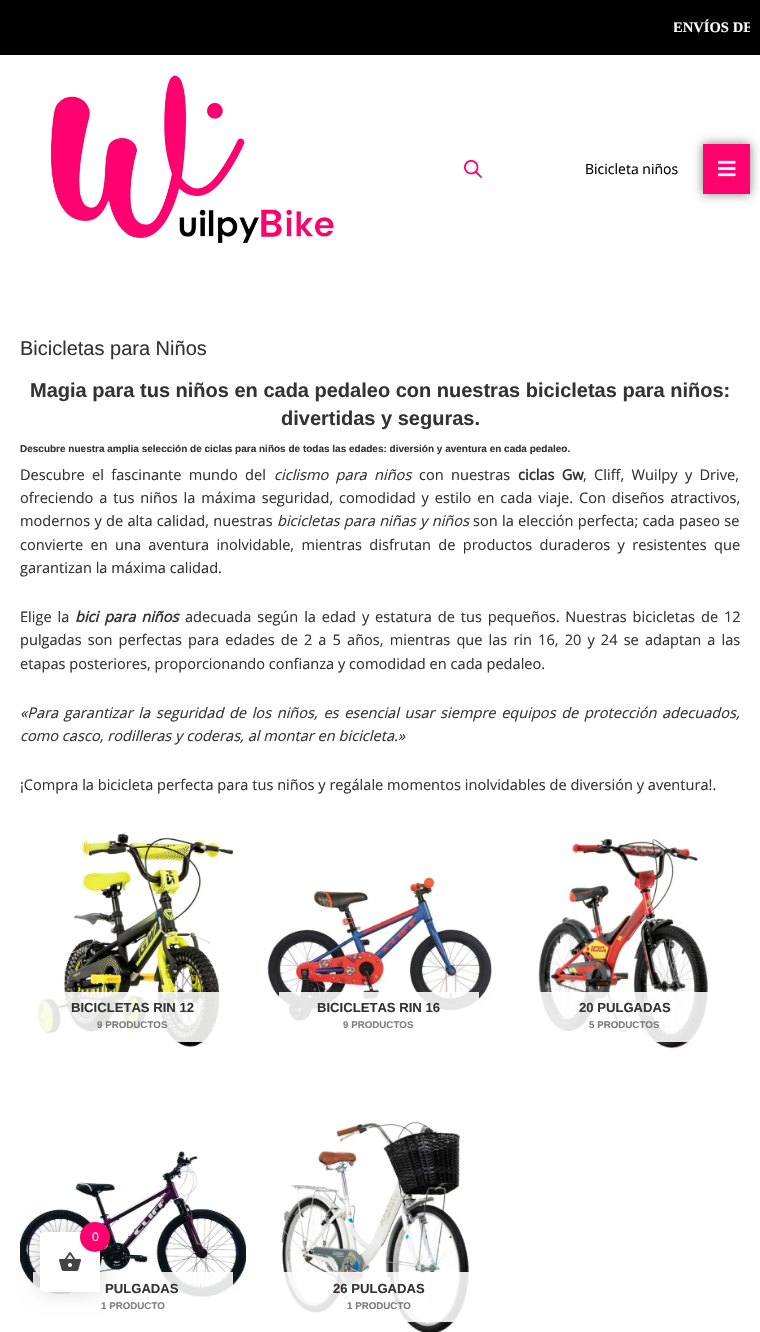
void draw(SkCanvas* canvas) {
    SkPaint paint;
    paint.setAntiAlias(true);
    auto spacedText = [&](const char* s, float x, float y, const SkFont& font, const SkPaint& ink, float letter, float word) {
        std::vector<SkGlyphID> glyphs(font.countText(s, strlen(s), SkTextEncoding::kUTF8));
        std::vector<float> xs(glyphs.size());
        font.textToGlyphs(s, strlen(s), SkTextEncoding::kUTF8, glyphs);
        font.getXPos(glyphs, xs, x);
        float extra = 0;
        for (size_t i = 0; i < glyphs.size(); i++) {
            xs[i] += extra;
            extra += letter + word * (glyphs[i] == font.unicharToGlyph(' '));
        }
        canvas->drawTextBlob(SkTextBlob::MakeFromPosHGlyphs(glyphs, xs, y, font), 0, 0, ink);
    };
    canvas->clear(0xFFFFFFFF);
    paint.setColor(0xFF000000);
    canvas->drawRect(SkRect::MakeXYWH(0, 0, 760, 55), paint);
    canvas->save();
    canvas->clipRect(SkRect::MakeXYWH(674, 10, 76, 35));
    SkFont font1(fontMgr->matchFamilyStyle("Liberation Serif", SkFontStyle::Bold()), 14.6f);
    font1.setSubpixel(true);
    paint.setColor(0xFFFEFCFC);
    canvas->drawString("ENVÍOS DE", 673, 32, font1, paint);
    canvas->restore();
    canvas->drawImageRect(SkImages::DeferredFromEncodedData(SkData::MakeFromFileName("img1.png")), SkRect::MakeXYWH(50, 75, 284, 168), SkSamplingOptions());
    canvas->drawImageRect(SkImages::DeferredFromEncodedData(SkData::MakeFromFileName("img2.png")), SkRect::MakeXYWH(464, 160, 18, 18), SkSamplingOptions());
    SkFont font2(fontMgr->matchFamilyStyle("Open Sans", SkFontStyle::Normal()), 14);
    font2.setSubpixel(true);
    paint.setColor(0xFF000000);
    canvas->drawString("Bicicleta niños", 585, 174, font2, paint);
    paint.setColor(0x80000000);
    paint.setMaskFilter(SkMaskFilter::MakeBlur(kNormal_SkBlurStyle, 5));
    canvas->drawRect(SkRect::MakeXYWH(703, 144, 47, 50), paint);
    paint.setMaskFilter(nullptr);
    paint.setColor(0xFFFF026F);
    canvas->drawRect(SkRect::MakeXYWH(703, 144, 47, 50), paint);
    canvas->drawImageRect(SkImages::DeferredFromEncodedData(SkData::MakeFromFileName("img3.png")), SkRect::MakeXYWH(718, 160, 18, 17), SkSamplingOptions());
    SkFont font3(fontMgr->matchFamilyStyle("Liberation Sans", SkFontStyle::Normal()), 20);
    font3.setSubpixel(true);
    paint.setColor(0xFF333333);
    canvas->drawString("Bicicletas para Niños", 20, 355, font3, paint);
    SkFont font4(fontMgr->matchFamilyStyle("Liberation Sans", SkFontStyle::Bold()), 20);
    font4.setSubpixel(true);
    canvas->drawString("Magia para tus niños en cada pedaleo con nuestras bicicletas para niños:", 30, 397, font4, paint);
    canvas->drawString("divertidas y seguras.", 281, 425, font4, paint);
    SkFont font5(fontMgr->matchFamilyStyle("Liberation Sans", SkFontStyle::Bold()), 10);
    font5.setSubpixel(true);
    canvas->drawString("Descubre nuestra amplia selección de ciclas para niños de todas las edades: diversión y aventura en cada pedaleo.", 20, 452, font5, paint);
    SkFont font6(fontMgr->matchFamilyStyle("Open Sans", SkFontStyle::Normal()), 14.6f);
    font6.setSubpixel(true);
    spacedText("Descubre el fascinante mundo del", 20, 480, font6, paint, 0, 3.5f);
    SkFont font7(fontMgr->matchFamilyStyle("Open Sans", SkFontStyle::Italic()), 14.6f);
    font7.setSubpixel(true);
    spacedText("ciclismo para niños", 274, 480, font7, paint, 0, 3.5f);
    spacedText("con nuestras", 419, 480, font6, paint, 0, 3.5f);
    SkFont font8(fontMgr->matchFamilyStyle("Open Sans", SkFontStyle::Bold()), 14.6f);
    font8.setSubpixel(true);
    spacedText("ciclas Gw", 518, 480, font8, paint, 0, 3.5f);
    spacedText(", Cliff, Wuilpy y Drive,", 583, 480, font6, paint, 0, 3.5f);
    spacedText("ofreciendo a tus niños la máxima seguridad, comodidad y estilo en cada viaje. Con diseños atractivos,", 20, 503, font6, paint, 0, 2.1f);
    spacedText("modernos y de alta calidad, nuestras", 20, 526, font6, paint, 0, 0.5f);
    spacedText("bicicletas para niñas y niños", 277, 526, font7, paint, 0, 0.5f);
    spacedText("son la elección perfecta; cada paseo se", 473, 526, font6, paint, 0, 0.5f);
    spacedText("convierte en una aventura inolvidable, mientras disfrutan de productos duraderos y resistentes que", 20, 550, font6, paint, 0, 3.5f);
    canvas->drawString("garantizan la máxima calidad.", 20, 573, font6, paint);
    spacedText("Elige la", 20, 622, font6, paint, 0, 2.1f);
    SkFont font9(fontMgr->matchFamilyStyle("Open Sans", SkFontStyle::BoldItalic()), 14.6f);
    font9.setSubpixel(true);
    spacedText("bici para niños", 75, 622, font9, paint, 0, 2.1f);
    spacedText("adecuada según la edad y estatura de tus pequeños. Nuestras bicicletas de 12", 185, 622, font6, paint, 0, 2.1f);
    spacedText("pulgadas son perfectas para edades de 2 a 5 años, mientras que las rin 16, 20 y 24 se adaptan a las", 20, 645, font6, paint, 0, 2.3f);
    canvas->drawString("etapas posteriores, proporcionando confianza y comodidad en cada pedaleo.", 20, 669, font6, paint);
    spacedText("«Para garantizar la seguridad de los niños, es esencial usar siempre equipos de protección adecuados,", 20, 718, font7, paint, 0, 1.8f);
    canvas->drawString("como casco, rodilleras y coderas, al montar en bicicleta.»", 20, 741, font7, paint);
    canvas->drawString("¡Compra la bicicleta perfecta para tus niños y regálale momentos inolvidables de diversión y aventura!.", 20, 790, font6, paint);
    canvas->drawImageRect(SkImages::DeferredFromEncodedData(SkData::MakeFromFileName("img4.png")), SkRect::MakeXYWH(37, 833, 197, 215), SkSamplingOptions());
    paint.setColor(0xE0FFFFFF);
    canvas->drawRect(SkRect::MakeXYWH(37, 992, 184, 50), paint);
    SkFont font10(fontMgr->matchFamilyStyle("Liberation Sans", SkFontStyle::Bold()), 13.1f);
    font10.setSubpixel(true);
    paint.setColor(0xFF333333);
    canvas->drawString("BICICLETAS RIN 12", 71, 1012, font10, paint);
    SkFont font11(fontMgr->matchFamilyStyle("Liberation Sans", SkFontStyle::Bold()), 9.75f);
    font11.setSubpixel(true);
    paint.setColor(0xFF7B7B7A);
    canvas->drawString("9 PRODUCTOS", 97, 1028, font11, paint);
    canvas->drawImageRect(SkImages::DeferredFromEncodedData(SkData::MakeFromFileName("img5.png")), SkRect::MakeXYWH(267, 875, 225, 147), SkSamplingOptions());
    paint.setColor(0xE0FFFFFF);
    canvas->drawRect(SkRect::MakeXYWH(279, 992, 200, 30), paint);
    paint.setColor(0xFF333333);
    canvas->drawString("BICICLETAS RIN 16", 317, 1012, font10, paint);
    paint.setColor(0xFF808080);
    canvas->drawString("9 PRODUCTOS", 343, 1028, font11, paint);
    canvas->drawImageRect(SkImages::DeferredFromEncodedData(SkData::MakeFromFileName("img6.png")), SkRect::MakeXYWH(538, 838, 170, 212), SkSamplingOptions());
    paint.setColor(0xE0FFFFFF);
    canvas->drawRect(SkRect::MakeXYWH(539, 992, 169, 50), paint);
    paint.setColor(0xFF333333);
    canvas->drawString("20 PULGADAS", 579, 1012, font10, paint);
    paint.setColor(0xFF7B7B7A);
    canvas->drawString("5 PRODUCTOS", 589, 1028, font11, paint);
    canvas->drawImageRect(SkImages::DeferredFromEncodedData(SkData::MakeFromFileName("img7.png")), SkRect::MakeXYWH(20, 1151, 226, 147), SkSamplingOptions());
    paint.setColor(0xE0FFFFFF);
    canvas->drawRect(SkRect::MakeXYWH(33, 1272, 200, 26), paint);
    paint.setColor(0xFF333333);
    canvas->drawString("PULGADAS", 105, 1293, font10, paint);
    paint.setColor(0xFF808080);
    canvas->drawString("1 PRODUCTO", 101, 1309, font11, paint);
    canvas->drawImageRect(SkImages::DeferredFromEncodedData(SkData::MakeFromFileName("img8.png")), SkRect::MakeXYWH(281, 1121, 189, 211), SkSamplingOptions());
    paint.setColor(0xE0FFFFFF);
    canvas->drawRect(SkRect::MakeXYWH(283, 1272, 187, 50), paint);
    paint.setColor(0xFF333333);
    canvas->drawString("26 PULGADAS", 333, 1293, font10, paint);
    paint.setColor(0xFF7B7B7A);
    canvas->drawString("1 PRODUCTO", 347, 1309, font11, paint);
    paint.setColor(0x26000000);
    paint.setMaskFilter(SkMaskFilter::MakeBlur(kNormal_SkBlurStyle, 10));
    canvas->drawRoundRect(SkRect::MakeXYWH(40, 1232, 60, 60), 4, 4, paint);
    paint.setMaskFilter(nullptr);
    paint.setColor(0xFFFFFFFF);
    canvas->drawRoundRect(SkRect::MakeXYWH(40, 1232, 60, 60), 4, 4, paint);
    paint.setColor(0xFFFF016F);
    canvas->drawCircle(95, 1237, 15, paint);
    SkFont font12(fontMgr->matchFamilyStyle("Open Sans", SkFontStyle::Normal()), 12);
    font12.setSubpixel(true);
    paint.setColor(0xFFFEFCFC);
    canvas->drawString("0", 92, 1241, font12, paint);
    canvas->drawImageRect(SkImages::DeferredFromEncodedData(SkData::MakeFromFileName("img9.png")), SkRect::MakeXYWH(59, 1252, 22, 19), SkSamplingOptions());
}
